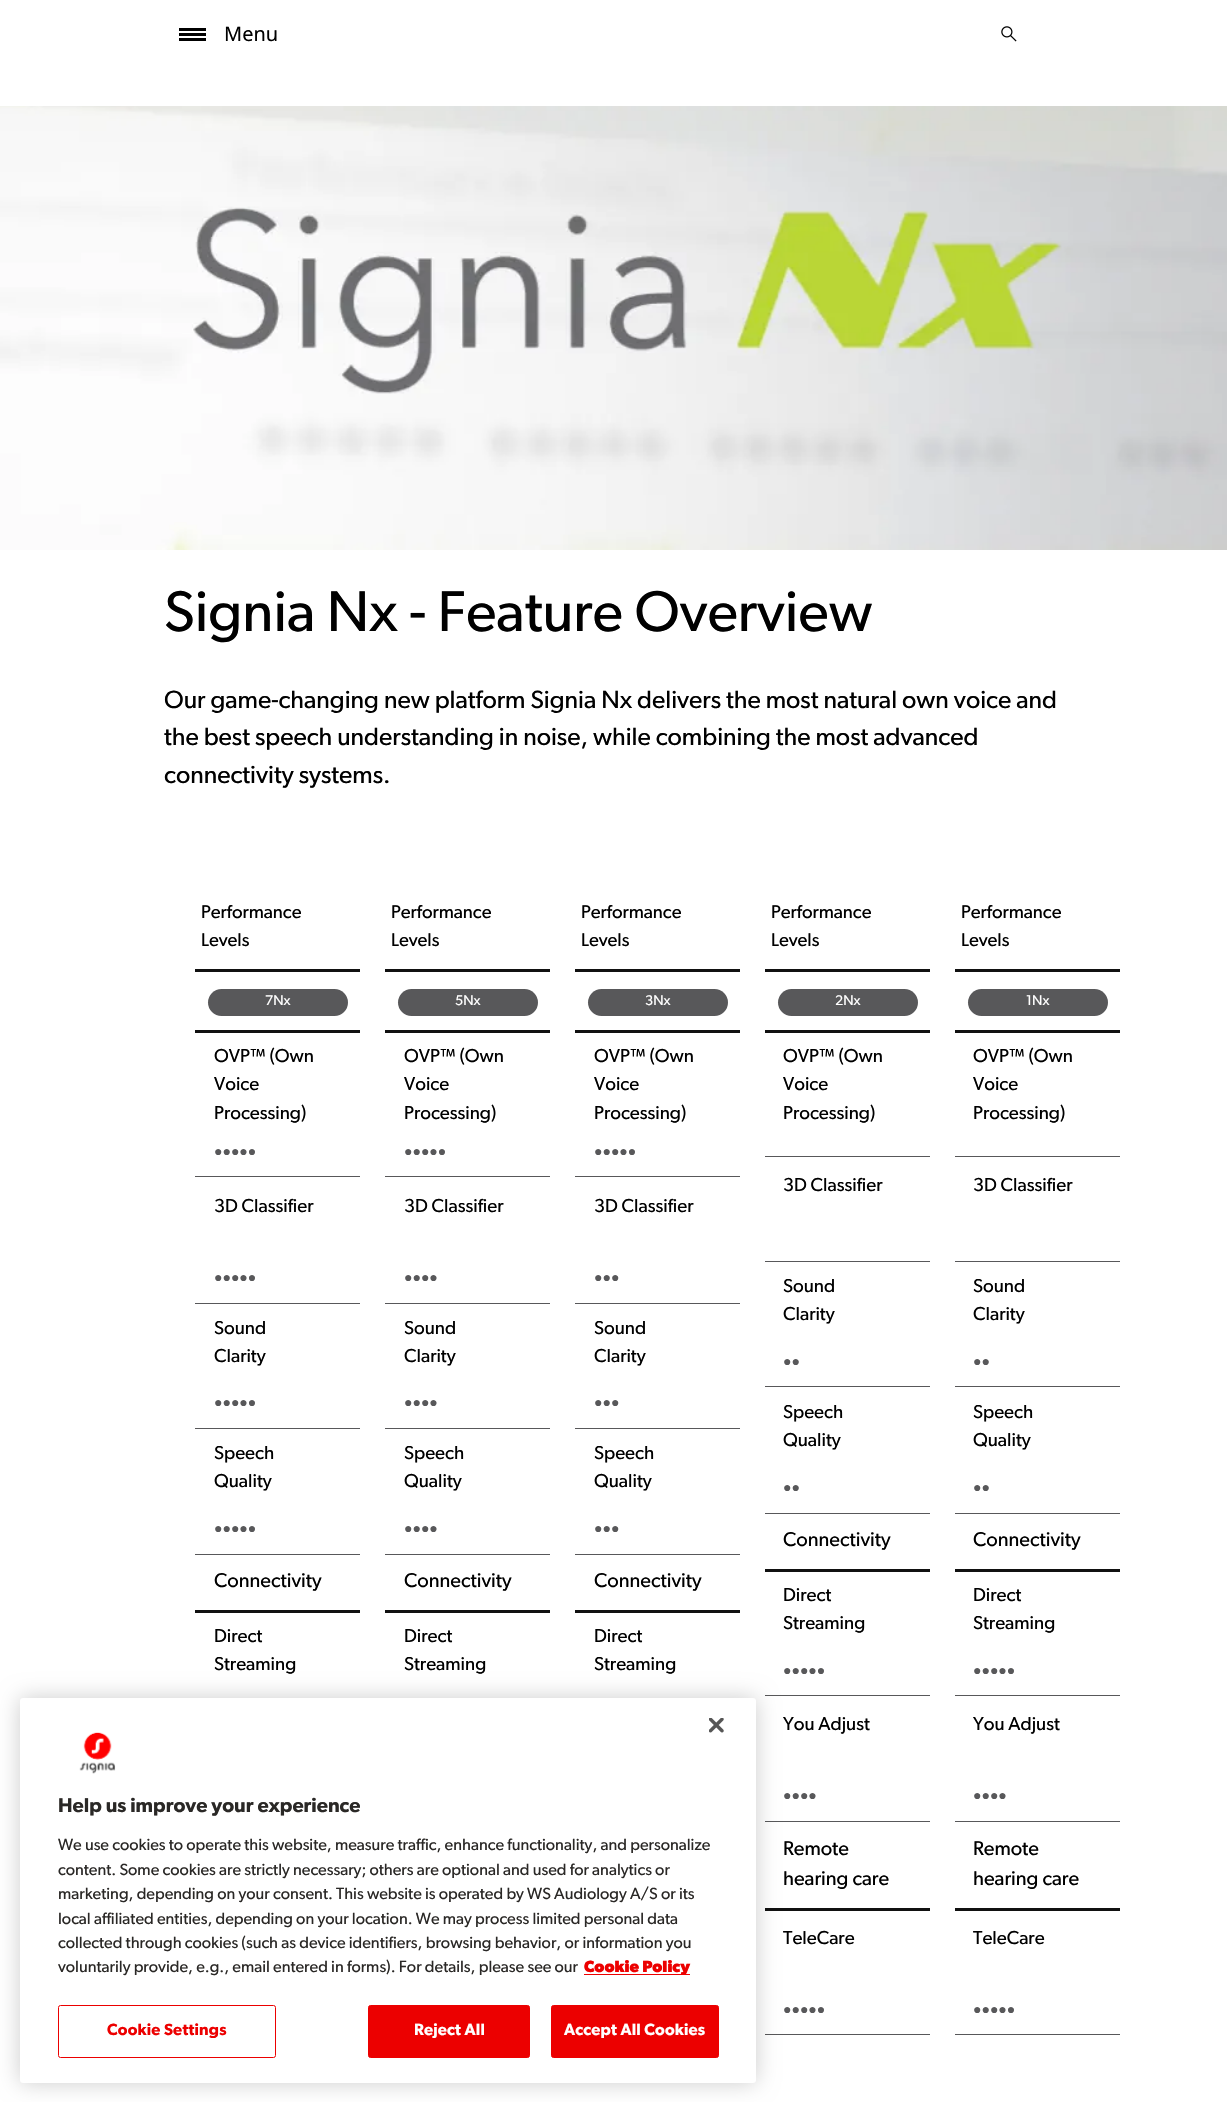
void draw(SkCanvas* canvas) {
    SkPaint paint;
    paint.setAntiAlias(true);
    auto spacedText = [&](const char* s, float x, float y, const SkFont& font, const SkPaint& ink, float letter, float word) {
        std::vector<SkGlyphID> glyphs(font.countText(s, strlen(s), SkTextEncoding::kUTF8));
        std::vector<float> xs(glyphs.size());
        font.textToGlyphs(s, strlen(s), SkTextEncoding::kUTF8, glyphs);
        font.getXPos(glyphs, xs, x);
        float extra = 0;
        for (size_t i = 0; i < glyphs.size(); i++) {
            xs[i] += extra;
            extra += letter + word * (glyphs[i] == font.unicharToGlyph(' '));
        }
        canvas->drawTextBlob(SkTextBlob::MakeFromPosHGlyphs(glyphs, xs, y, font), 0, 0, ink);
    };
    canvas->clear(0xFFFFFFFF);
    paint.setColor(0xFF000000);
    canvas->drawRect(SkRect::MakeXYWH(179, 33, 27, 3), paint);
    canvas->drawRect(SkRect::MakeXYWH(179, 28, 27, 3), paint);
    canvas->drawRect(SkRect::MakeXYWH(179, 38, 27, 3), paint);
    SkFont font1(fontMgr->matchFamilyStyle("Noto Sans", SkFontStyle::Normal()), 20);
    font1.setSubpixel(true);
    canvas->drawString("Menu", 224, 41, font1, paint);
    canvas->drawImageRect(SkImages::DeferredFromEncodedData(SkData::MakeFromFileName("img1.png")), SkRect::MakeXYWH(1001, 26, 16, 16), SkSamplingOptions());
    canvas->drawImageRect(SkImages::DeferredFromEncodedData(SkData::MakeFromFileName("img2.png")), SkRect::MakeXYWH(0, 106, 1227, 444), SkSamplingOptions());
    SkFont font2(fontMgr->matchFamilyStyle("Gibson", SkFontStyle::Normal()), 57.5f);
    font2.setSubpixel(true);
    canvas->drawString("Signia Nx - Feature Overview", 164, 631, font2, paint);
    SkFont font3(fontMgr->matchFamilyStyle("Gibson", SkFontStyle::Normal()), 25);
    font3.setSubpixel(true);
    canvas->drawString("Our game-changing new platform Signia Nx delivers the most natural own voice and", 164, 708, font3, paint);
    canvas->drawString("the best speech understanding in noise, while combining the most advanced", 164, 745, font3, paint);
    canvas->drawString("connectivity systems.", 164, 783, font3, paint);
    paint.setColor(0xFF111111);
    canvas->drawRect(SkRect::MakeXYWH(195, 969, 165, 3), paint);
    SkFont font4(fontMgr->matchFamilyStyle("Gibson", SkFontStyle::Normal()), 18.5f);
    font4.setSubpixel(true);
    paint.setColor(0xFF000000);
    canvas->drawString("Performance", 201, 918, font4, paint);
    canvas->drawString("Levels", 201, 946, font4, paint);
    paint.setColor(0xFF111111);
    canvas->drawRect(SkRect::MakeXYWH(195, 1030, 165, 3), paint);
    paint.setColor(0xFF58585A);
    canvas->drawRoundRect(SkRect::MakeXYWH(208, 989, 140, 27), 13.5f, 13.5f, paint);
    SkFont font5(fontMgr->matchFamilyStyle("Gibson", SkFontStyle::Normal()), 14);
    font5.setSubpixel(true);
    paint.setColor(0xFFFFFFFF);
    canvas->drawString("7Nx", 265, 1005, font5, paint);
    paint.setColor(0xFF58585A);
    canvas->drawRect(SkRect::MakeXYWH(195, 1176, 165, 1), paint);
    SkFont font6(fontMgr->matchFamilyStyle("Gibson", SkFontStyle::Normal()), 18.75f);
    font6.setSubpixel(true);
    paint.setColor(0xFF000000);
    canvas->drawString("OVP™ (Own", 214, 1062, font6, paint);
    canvas->drawString("Voice", 214, 1090, font6, paint);
    canvas->drawString("Processing)", 214, 1119, font6, paint);
    SkFont font7(fontMgr->matchFamilyStyle("Liberation Sans", SkFontStyle::Normal()), 14);
    font7.setSubpixel(true);
    paint.setColor(0xFF58585A);
    canvas->drawString("●●●●●", 214, 1156, font7, paint);
    canvas->drawRect(SkRect::MakeXYWH(195, 1303, 165, 1), paint);
    paint.setColor(0xFF000000);
    canvas->drawString("3D Classifier", 214, 1212, font6, paint);
    paint.setColor(0xFF58585A);
    canvas->drawString("●●●●●", 214, 1282, font7, paint);
    canvas->drawRect(SkRect::MakeXYWH(195, 1428, 165, 1), paint);
    paint.setColor(0xFF000000);
    canvas->drawString("Sound", 214, 1334, font6, paint);
    canvas->drawString("Clarity", 214, 1362, font6, paint);
    paint.setColor(0xFF58585A);
    canvas->drawString("●●●●●", 214, 1407, font7, paint);
    canvas->drawRect(SkRect::MakeXYWH(195, 1554, 165, 1), paint);
    paint.setColor(0xFF000000);
    canvas->drawString("Speech", 214, 1459, font6, paint);
    canvas->drawString("Quality", 214, 1487, font6, paint);
    paint.setColor(0xFF58585A);
    canvas->drawString("●●●●●", 214, 1533, font7, paint);
    paint.setColor(0xFF111111);
    canvas->drawRect(SkRect::MakeXYWH(195, 1610, 165, 3), paint);
    SkFont font8(fontMgr->matchFamilyStyle("Gibson", SkFontStyle::Normal()), 20);
    font8.setSubpixel(true);
    paint.setColor(0xFF000000);
    canvas->drawString("Connectivity", 214, 1587, font8, paint);
    canvas->drawString("Direct", 214, 1642, font6, paint);
    canvas->drawString("Streaming", 214, 1670, font6, paint);
    paint.setColor(0xFF111111);
    canvas->drawRect(SkRect::MakeXYWH(385, 969, 165, 3), paint);
    paint.setColor(0xFF000000);
    canvas->drawString("Performance", 391, 918, font4, paint);
    canvas->drawString("Levels", 391, 946, font4, paint);
    paint.setColor(0xFF111111);
    canvas->drawRect(SkRect::MakeXYWH(385, 1030, 165, 3), paint);
    paint.setColor(0xFF58585A);
    canvas->drawRoundRect(SkRect::MakeXYWH(398, 989, 140, 27), 13.5f, 13.5f, paint);
    paint.setColor(0xFFFFFFFF);
    canvas->drawString("5Nx", 455, 1005, font5, paint);
    paint.setColor(0xFF58585A);
    canvas->drawRect(SkRect::MakeXYWH(385, 1176, 165, 1), paint);
    paint.setColor(0xFF000000);
    canvas->drawString("OVP™ (Own", 404, 1062, font6, paint);
    canvas->drawString("Voice", 404, 1090, font6, paint);
    canvas->drawString("Processing)", 404, 1119, font6, paint);
    paint.setColor(0xFF58585A);
    canvas->drawString("●●●●●", 404, 1156, font7, paint);
    canvas->drawRect(SkRect::MakeXYWH(385, 1303, 165, 1), paint);
    paint.setColor(0xFF000000);
    canvas->drawString("3D Classifier", 404, 1212, font6, paint);
    paint.setColor(0xFF58585A);
    canvas->drawString("●●●●", 404, 1282, font7, paint);
    canvas->drawRect(SkRect::MakeXYWH(385, 1428, 165, 1), paint);
    paint.setColor(0xFF000000);
    canvas->drawString("Sound", 404, 1334, font6, paint);
    canvas->drawString("Clarity", 404, 1362, font6, paint);
    paint.setColor(0xFF58585A);
    canvas->drawString("●●●●", 404, 1407, font7, paint);
    canvas->drawRect(SkRect::MakeXYWH(385, 1554, 165, 1), paint);
    paint.setColor(0xFF000000);
    canvas->drawString("Speech", 404, 1459, font6, paint);
    canvas->drawString("Quality", 404, 1487, font6, paint);
    paint.setColor(0xFF58585A);
    canvas->drawString("●●●●", 404, 1533, font7, paint);
    paint.setColor(0xFF111111);
    canvas->drawRect(SkRect::MakeXYWH(385, 1610, 165, 3), paint);
    paint.setColor(0xFF000000);
    canvas->drawString("Connectivity", 404, 1587, font8, paint);
    canvas->drawString("Direct", 404, 1642, font6, paint);
    canvas->drawString("Streaming", 404, 1670, font6, paint);
    paint.setColor(0xFF111111);
    canvas->drawRect(SkRect::MakeXYWH(575, 969, 165, 3), paint);
    paint.setColor(0xFF000000);
    canvas->drawString("Performance", 581, 918, font4, paint);
    canvas->drawString("Levels", 581, 946, font4, paint);
    paint.setColor(0xFF111111);
    canvas->drawRect(SkRect::MakeXYWH(575, 1030, 165, 3), paint);
    paint.setColor(0xFF58585A);
    canvas->drawRoundRect(SkRect::MakeXYWH(588, 989, 140, 27), 13.5f, 13.5f, paint);
    paint.setColor(0xFFFFFFFF);
    canvas->drawString("3Nx", 645, 1005, font5, paint);
    paint.setColor(0xFF58585A);
    canvas->drawRect(SkRect::MakeXYWH(575, 1176, 165, 1), paint);
    paint.setColor(0xFF000000);
    canvas->drawString("OVP™ (Own", 594, 1062, font6, paint);
    canvas->drawString("Voice", 594, 1090, font6, paint);
    canvas->drawString("Processing)", 594, 1119, font6, paint);
    paint.setColor(0xFF58585A);
    canvas->drawString("●●●●●", 594, 1156, font7, paint);
    canvas->drawRect(SkRect::MakeXYWH(575, 1303, 165, 1), paint);
    paint.setColor(0xFF000000);
    canvas->drawString("3D Classifier", 594, 1212, font6, paint);
    paint.setColor(0xFF58585A);
    canvas->drawString("●●●", 594, 1282, font7, paint);
    canvas->drawRect(SkRect::MakeXYWH(575, 1428, 165, 1), paint);
    paint.setColor(0xFF000000);
    canvas->drawString("Sound", 594, 1334, font6, paint);
    canvas->drawString("Clarity", 594, 1362, font6, paint);
    paint.setColor(0xFF58585A);
    canvas->drawString("●●●", 594, 1407, font7, paint);
    canvas->drawRect(SkRect::MakeXYWH(575, 1554, 165, 1), paint);
    paint.setColor(0xFF000000);
    canvas->drawString("Speech", 594, 1459, font6, paint);
    canvas->drawString("Quality", 594, 1487, font6, paint);
    paint.setColor(0xFF58585A);
    canvas->drawString("●●●", 594, 1533, font7, paint);
    paint.setColor(0xFF111111);
    canvas->drawRect(SkRect::MakeXYWH(575, 1610, 165, 3), paint);
    paint.setColor(0xFF000000);
    canvas->drawString("Connectivity", 594, 1587, font8, paint);
    canvas->drawString("Direct", 594, 1642, font6, paint);
    canvas->drawString("Streaming", 594, 1670, font6, paint);
    paint.setColor(0xFF111111);
    canvas->drawRect(SkRect::MakeXYWH(765, 969, 165, 3), paint);
    paint.setColor(0xFF000000);
    canvas->drawString("Performance", 771, 918, font4, paint);
    canvas->drawString("Levels", 771, 946, font4, paint);
    paint.setColor(0xFF111111);
    canvas->drawRect(SkRect::MakeXYWH(765, 1030, 165, 3), paint);
    paint.setColor(0xFF58585A);
    canvas->drawRoundRect(SkRect::MakeXYWH(778, 989, 140, 27), 13.5f, 13.5f, paint);
    paint.setColor(0xFFFFFFFF);
    canvas->drawString("2Nx", 835, 1005, font5, paint);
    paint.setColor(0xFF58585A);
    canvas->drawRect(SkRect::MakeXYWH(765, 1156, 165, 1), paint);
    paint.setColor(0xFF000000);
    canvas->drawString("OVP™ (Own", 783, 1062, font6, paint);
    canvas->drawString("Voice", 783, 1090, font6, paint);
    canvas->drawString("Processing)", 783, 1119, font6, paint);
    paint.setColor(0xFF58585A);
    canvas->drawRect(SkRect::MakeXYWH(765, 1261, 165, 1), paint);
    paint.setColor(0xFF000000);
    canvas->drawString("3D Classifier", 783, 1191, font6, paint);
    paint.setColor(0xFF58585A);
    canvas->drawRect(SkRect::MakeXYWH(765, 1386, 165, 1), paint);
    paint.setColor(0xFF000000);
    canvas->drawString("Sound", 783, 1292, font6, paint);
    canvas->drawString("Clarity", 783, 1320, font6, paint);
    paint.setColor(0xFF58585A);
    canvas->drawString("●●", 783, 1366, font7, paint);
    canvas->drawRect(SkRect::MakeXYWH(765, 1513, 165, 1), paint);
    paint.setColor(0xFF000000);
    canvas->drawString("Speech", 783, 1418, font6, paint);
    canvas->drawString("Quality", 783, 1446, font6, paint);
    paint.setColor(0xFF58585A);
    canvas->drawString("●●", 783, 1492, font7, paint);
    paint.setColor(0xFF111111);
    canvas->drawRect(SkRect::MakeXYWH(765, 1569, 165, 3), paint);
    paint.setColor(0xFF000000);
    canvas->drawString("Connectivity", 783, 1546, font8, paint);
    paint.setColor(0xFF58585A);
    canvas->drawRect(SkRect::MakeXYWH(765, 1695, 165, 1), paint);
    paint.setColor(0xFF000000);
    canvas->drawString("Direct", 783, 1601, font6, paint);
    canvas->drawString("Streaming", 783, 1629, font6, paint);
    paint.setColor(0xFF58585A);
    canvas->drawString("●●●●●", 783, 1675, font7, paint);
    canvas->drawRect(SkRect::MakeXYWH(765, 1821, 165, 1), paint);
    paint.setColor(0xFF000000);
    canvas->drawString("You Adjust", 783, 1730, font6, paint);
    paint.setColor(0xFF58585A);
    canvas->drawString("●●●●", 783, 1800, font7, paint);
    paint.setColor(0xFF111111);
    canvas->drawRect(SkRect::MakeXYWH(765, 1908, 165, 3), paint);
    paint.setColor(0xFF000000);
    canvas->drawString("Remote", 783, 1855, font8, paint);
    canvas->drawString("hearing care", 783, 1885, font8, paint);
    paint.setColor(0xFF58585A);
    canvas->drawRect(SkRect::MakeXYWH(765, 2034, 165, 1), paint);
    paint.setColor(0xFF000000);
    canvas->drawString("TeleCare", 783, 1944, font6, paint);
    paint.setColor(0xFF58585A);
    canvas->drawString("●●●●●", 783, 2014, font7, paint);
    paint.setColor(0xFF111111);
    canvas->drawRect(SkRect::MakeXYWH(955, 969, 165, 3), paint);
    paint.setColor(0xFF000000);
    canvas->drawString("Performance", 961, 918, font4, paint);
    canvas->drawString("Levels", 961, 946, font4, paint);
    paint.setColor(0xFF111111);
    canvas->drawRect(SkRect::MakeXYWH(955, 1030, 165, 3), paint);
    paint.setColor(0xFF58585A);
    canvas->drawRoundRect(SkRect::MakeXYWH(968, 989, 140, 27), 13.5f, 13.5f, paint);
    paint.setColor(0xFFFFFFFF);
    canvas->drawString("1Nx", 1026, 1005, font5, paint);
    paint.setColor(0xFF58585A);
    canvas->drawRect(SkRect::MakeXYWH(955, 1156, 165, 1), paint);
    paint.setColor(0xFF000000);
    canvas->drawString("OVP™ (Own", 973, 1062, font6, paint);
    canvas->drawString("Voice", 973, 1090, font6, paint);
    canvas->drawString("Processing)", 973, 1119, font6, paint);
    paint.setColor(0xFF58585A);
    canvas->drawRect(SkRect::MakeXYWH(955, 1261, 165, 1), paint);
    paint.setColor(0xFF000000);
    canvas->drawString("3D Classifier", 973, 1191, font6, paint);
    paint.setColor(0xFF58585A);
    canvas->drawRect(SkRect::MakeXYWH(955, 1386, 165, 1), paint);
    paint.setColor(0xFF000000);
    canvas->drawString("Sound", 973, 1292, font6, paint);
    canvas->drawString("Clarity", 973, 1320, font6, paint);
    paint.setColor(0xFF58585A);
    canvas->drawString("●●", 973, 1366, font7, paint);
    canvas->drawRect(SkRect::MakeXYWH(955, 1513, 165, 1), paint);
    paint.setColor(0xFF000000);
    canvas->drawString("Speech", 973, 1418, font6, paint);
    canvas->drawString("Quality", 973, 1446, font6, paint);
    paint.setColor(0xFF58585A);
    canvas->drawString("●●", 973, 1492, font7, paint);
    paint.setColor(0xFF111111);
    canvas->drawRect(SkRect::MakeXYWH(955, 1569, 165, 3), paint);
    paint.setColor(0xFF000000);
    canvas->drawString("Connectivity", 973, 1546, font8, paint);
    paint.setColor(0xFF58585A);
    canvas->drawRect(SkRect::MakeXYWH(955, 1695, 165, 1), paint);
    paint.setColor(0xFF000000);
    canvas->drawString("Direct", 973, 1601, font6, paint);
    canvas->drawString("Streaming", 973, 1629, font6, paint);
    paint.setColor(0xFF58585A);
    canvas->drawString("●●●●●", 973, 1675, font7, paint);
    canvas->drawRect(SkRect::MakeXYWH(955, 1821, 165, 1), paint);
    paint.setColor(0xFF000000);
    canvas->drawString("You Adjust", 973, 1730, font6, paint);
    paint.setColor(0xFF58585A);
    canvas->drawString("●●●●", 973, 1800, font7, paint);
    paint.setColor(0xFF111111);
    canvas->drawRect(SkRect::MakeXYWH(955, 1908, 165, 3), paint);
    paint.setColor(0xFF000000);
    canvas->drawString("Remote", 973, 1855, font8, paint);
    canvas->drawString("hearing care", 973, 1885, font8, paint);
    paint.setColor(0xFF58585A);
    canvas->drawRect(SkRect::MakeXYWH(955, 2034, 165, 1), paint);
    paint.setColor(0xFF000000);
    canvas->drawString("TeleCare", 973, 1944, font6, paint);
    paint.setColor(0xFF58585A);
    canvas->drawString("●●●●●", 973, 2014, font7, paint);
    paint.setColor(0x33000000);
    paint.setMaskFilter(SkMaskFilter::MakeBlur(kNormal_SkBlurStyle, 11));
    canvas->drawRoundRect(SkRect::MakeXYWH(20, 1698, 736, 385), 3, 3, paint);
    paint.setMaskFilter(nullptr);
    paint.setColor(0xFFFFFFFF);
    canvas->drawRoundRect(SkRect::MakeXYWH(20, 1698, 736, 385), 3, 3, paint);
    canvas->drawImageRect(SkImages::DeferredFromEncodedData(SkData::MakeFromFileName("img3.png")), SkRect::MakeXYWH(709, 1718, 15, 15), SkSamplingOptions());
    canvas->drawImageRect(SkImages::DeferredFromEncodedData(SkData::MakeFromFileName("img4.png")), SkRect::MakeXYWH(79, 1732, 37, 42), SkSamplingOptions());
    SkFont font9(fontMgr->matchFamilyStyle("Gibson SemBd", SkFontStyle(600, SkFontStyle::kNormal_Width, SkFontStyle::kUpright_Slant)), 20);
    font9.setSubpixel(true);
    paint.setColor(0xFF2A2826);
    canvas->drawString("Help us improve your experience", 58, 1812, font9, paint);
    SkFont font10(fontMgr->matchFamilyStyle("Gibson", SkFontStyle::Normal()), 16.25f);
    font10.setSubpixel(true);
    canvas->drawString("We use cookies to operate this website, measure traffic, enhance functionality, and personalize", 58, 1850, font10, paint);
    canvas->drawString("content. Some cookies are strictly necessary; others are optional and used for analytics or", 58, 1875, font10, paint);
    canvas->drawString("marketing, depending on your consent. This website is operated by WS Audiology A/S or its", 58, 1899, font10, paint);
    canvas->drawString("local affiliated entities, depending on your location. We may process limited personal data", 58, 1924, font10, paint);
    canvas->drawString("collected through cookies (such as device identifiers, browsing behavior, or information you", 58, 1948, font10, paint);
    canvas->drawString("voluntarily provide, e.g., email entered in forms). For details, please see our", 58, 1972, font10, paint);
    paint.setColor(0xFFEC0000);
    canvas->drawRect(SkRect::MakeXYWH(584, 1974, 106, 1), paint);
    SkFont font11(fontMgr->matchFamilyStyle("Gibson", SkFontStyle::Bold()), 16.25f);
    font11.setSubpixel(true);
    canvas->drawString("Cookie Policy", 584, 1972, font11, paint);
    paint.setStyle(SkPaint::kStroke_Style);
    paint.setStrokeWidth(1);
    canvas->drawRoundRect(SkRect::MakeXYWH(58.5f, 2005.5f, 217, 52), 2, 2, paint);
    SkFont font12(fontMgr->matchFamilyStyle("Gibson SemBd", SkFontStyle(600, SkFontStyle::kNormal_Width, SkFontStyle::kUpright_Slant)), 16.25f);
    font12.setSubpixel(true);
    paint.setStyle(SkPaint::kFill_Style);
    spacedText("Cookie Settings", 107, 2035, font12, paint, 0.2f, 0);
    canvas->drawRoundRect(SkRect::MakeXYWH(368.5f, 2005.5f, 161, 52), 2, 2, paint);
    paint.setStyle(SkPaint::kStroke_Style);
    canvas->drawRoundRect(SkRect::MakeXYWH(368.5f, 2005.5f, 161, 52), 2, 2, paint);
    paint.setStyle(SkPaint::kFill_Style);
    paint.setColor(0xFFFFFFFF);
    spacedText("Reject All", 414, 2035, font12, paint, 0.2f, 0);
    paint.setColor(0xFFEC0000);
    canvas->drawRoundRect(SkRect::MakeXYWH(551.5f, 2005.5f, 167, 52), 2, 2, paint);
    paint.setStyle(SkPaint::kStroke_Style);
    canvas->drawRoundRect(SkRect::MakeXYWH(551.5f, 2005.5f, 167, 52), 2, 2, paint);
    paint.setStyle(SkPaint::kFill_Style);
    paint.setColor(0xFFFFFFFF);
    spacedText("Accept All Cookies", 564, 2035, font12, paint, 0.2f, 0);
}
